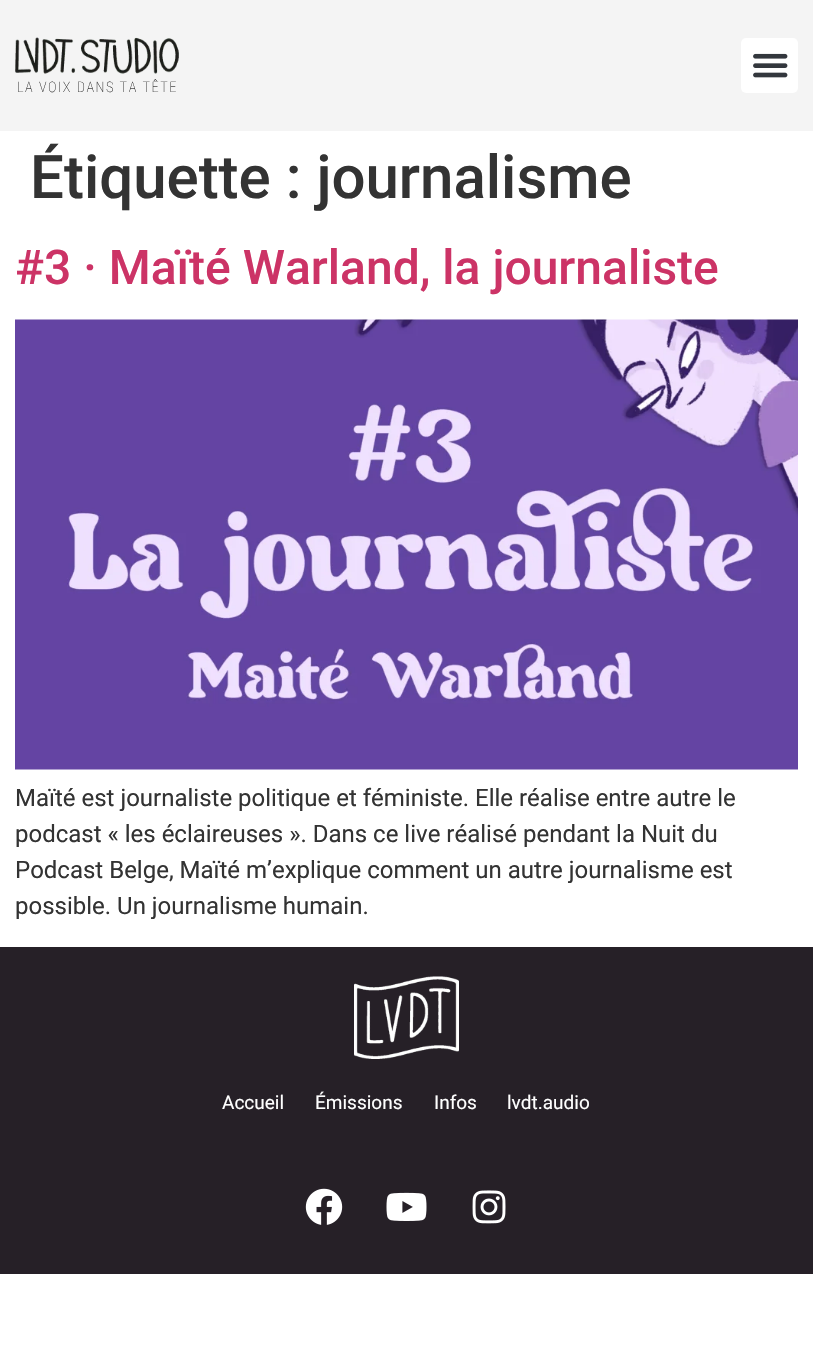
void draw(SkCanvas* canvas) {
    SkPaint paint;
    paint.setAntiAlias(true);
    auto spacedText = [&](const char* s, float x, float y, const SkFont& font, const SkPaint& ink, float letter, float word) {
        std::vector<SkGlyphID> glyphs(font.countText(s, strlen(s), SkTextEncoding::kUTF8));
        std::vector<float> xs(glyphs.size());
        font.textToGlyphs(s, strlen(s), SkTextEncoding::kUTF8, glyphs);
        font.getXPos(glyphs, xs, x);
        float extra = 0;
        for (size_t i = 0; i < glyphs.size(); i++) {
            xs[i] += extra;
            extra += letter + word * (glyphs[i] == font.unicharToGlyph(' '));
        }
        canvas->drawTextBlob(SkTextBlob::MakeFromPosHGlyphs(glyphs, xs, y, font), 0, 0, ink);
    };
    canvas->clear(0xFFFFFFFF);
    paint.setColor(0xFFF4F4F4);
    canvas->drawRect(SkRect::MakeXYWH(0, 0, 813, 131), paint);
    canvas->drawImageRect(SkImages::DeferredFromEncodedData(SkData::MakeFromFileName("img1.png")), SkRect::MakeXYWH(15, 37, 164, 37), SkSamplingOptions());
    SkFont font1(fontMgr->matchFamilyStyle("Roboto Condensed", SkFontStyle(100, SkFontStyle::kNormal_Width, SkFontStyle::kUpright_Slant)), 14.4f);
    font1.setSubpixel(true);
    paint.setColor(0xFF181818);
    spacedText("LA VOIX DANS TA TÊTE", 17, 92, font1, paint, 1.5f, 0);
    paint.setColor(0xFFFFFFFF);
    canvas->drawRoundRect(SkRect::MakeXYWH(741, 38, 57, 55), 5, 5, paint);
    canvas->drawImageRect(SkImages::DeferredFromEncodedData(SkData::MakeFromFileName("img2.png")), SkRect::MakeXYWH(753, 53, 35, 25), SkSamplingOptions());
    SkFont font2(fontMgr->matchFamilyStyle("Roboto", SkFontStyle(500, SkFontStyle::kNormal_Width, SkFontStyle::kUpright_Slant)), 60);
    font2.setSubpixel(true);
    paint.setColor(0xFF333333);
    canvas->drawString("Étiquette : journalisme", 30, 198, font2, paint);
    SkFont font3(fontMgr->matchFamilyStyle("Roboto", SkFontStyle(500, SkFontStyle::kNormal_Width, SkFontStyle::kUpright_Slant)), 48);
    font3.setSubpixel(true);
    paint.setColor(0xFFCC3366);
    canvas->drawString("#3 · Maïté Warland, la journaliste", 15, 284, font3, paint);
    canvas->drawImageRect(SkImages::DeferredFromEncodedData(SkData::MakeFromFileName("img3.png")), SkRect::MakeXYWH(15, 319, 783, 451), SkSamplingOptions());
    SkFont font4(fontMgr->matchFamilyStyle("Roboto", SkFontStyle::Normal()), 24);
    font4.setSubpixel(true);
    paint.setColor(0xFF333333);
    canvas->drawString("Maïté est journaliste politique et féministe. Elle réalise entre autre le", 15, 806, font4, paint);
    canvas->drawString("podcast « les éclaireuses ». Dans ce live réalisé pendant la Nuit du", 15, 842, font4, paint);
    canvas->drawString("Podcast Belge, Maïté m’explique comment un autre journalisme est", 15, 878, font4, paint);
    canvas->drawString("possible. Un journalisme humain.", 15, 914, font4, paint);
    paint.setColor(0xFF262027);
    canvas->drawRect(SkRect::MakeXYWH(0, 947, 813, 327), paint);
    canvas->drawImageRect(SkImages::DeferredFromEncodedData(SkData::MakeFromFileName("img4.png")), SkRect::MakeXYWH(354, 976, 105, 83), SkSamplingOptions());
    SkFont font5(fontMgr->matchFamilyStyle("Roboto", SkFontStyle::Normal()), 19);
    font5.setSubpixel(true);
    paint.setColor(0xFFFFFFFF);
    canvas->drawString("Accueil", 222, 1109, font5, paint);
    canvas->drawString("Émissions", 315, 1109, font5, paint);
    canvas->drawString("Infos", 434, 1109, font5, paint);
    canvas->drawString("lvdt.audio", 507, 1109, font5, paint);
    canvas->drawImageRect(SkImages::DeferredFromEncodedData(SkData::MakeFromFileName("img5.png")), SkRect::MakeXYWH(305, 1188, 38, 37), SkSamplingOptions());
    canvas->drawImageRect(SkImages::DeferredFromEncodedData(SkData::MakeFromFileName("img6.png")), SkRect::MakeXYWH(386, 1192, 41, 29), SkSamplingOptions());
    canvas->drawImageRect(SkImages::DeferredFromEncodedData(SkData::MakeFromFileName("img7.png")), SkRect::MakeXYWH(472, 1190, 34, 34), SkSamplingOptions());
}
